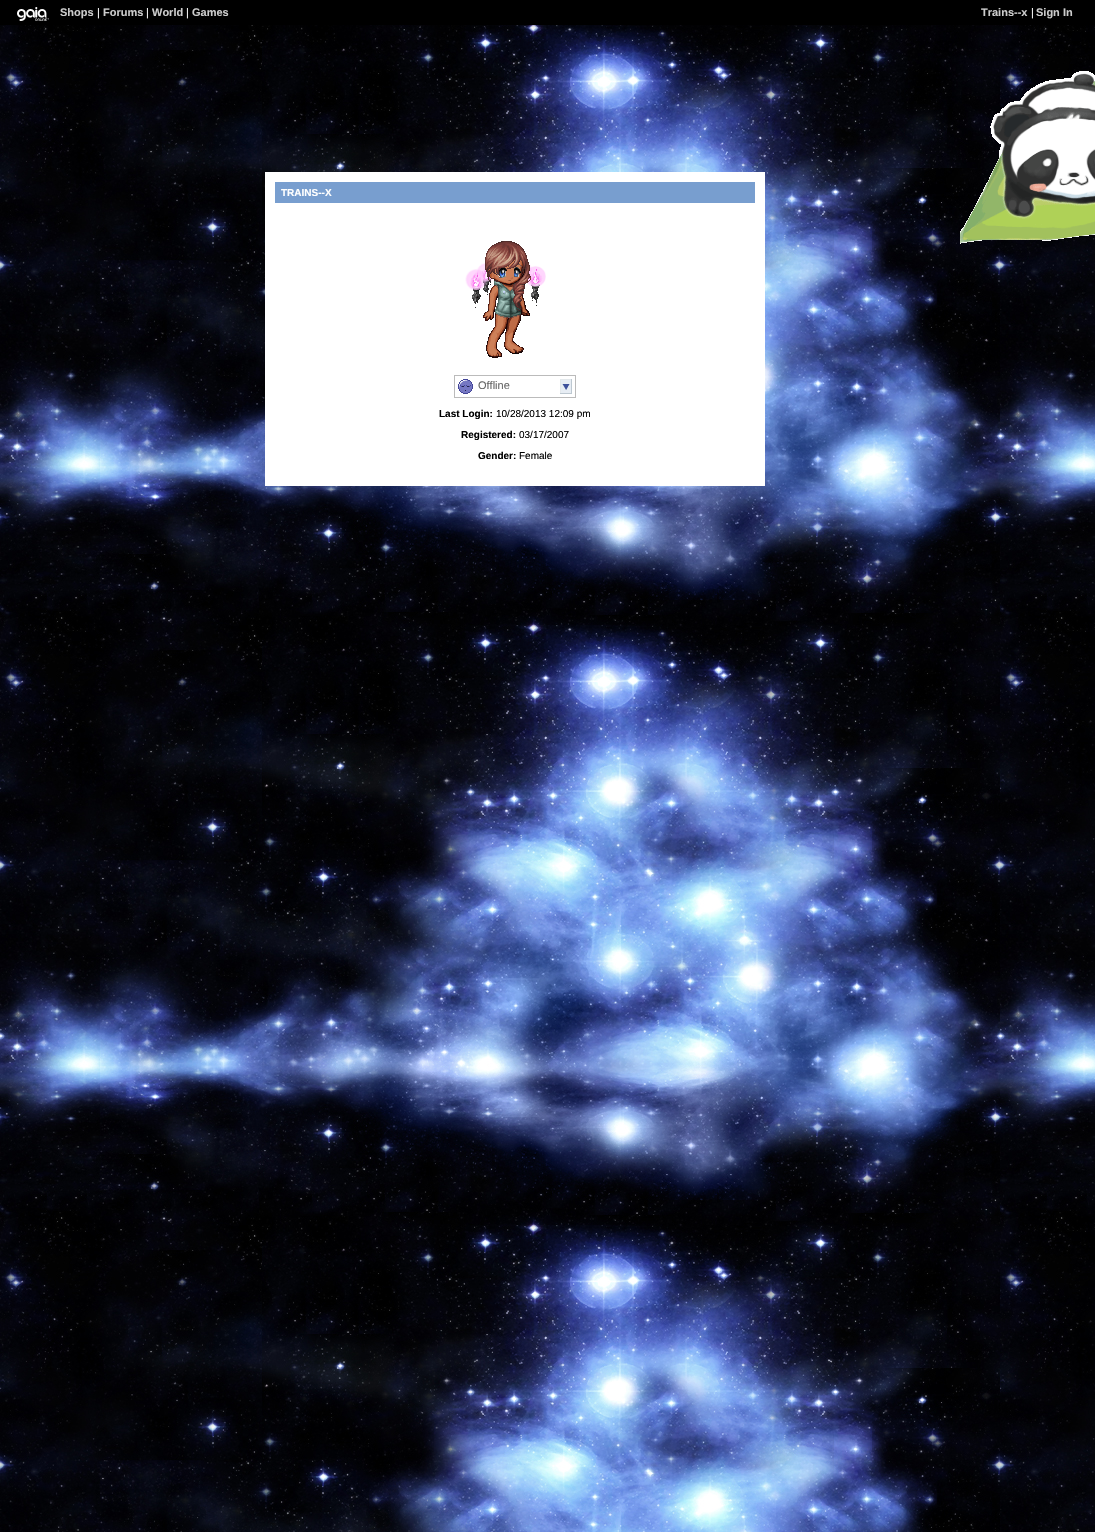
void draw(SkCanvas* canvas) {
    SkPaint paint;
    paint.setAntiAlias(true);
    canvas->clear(0xFFFFFFFF);
    canvas->drawImageRect(SkImages::DeferredFromEncodedData(SkData::MakeFromFileName("img1.png")), SkRect::MakeXYWH(0, 25, 1095, 1507), SkSamplingOptions());
    paint.setColor(0xFF000000);
    canvas->drawRect(SkRect::MakeXYWH(0, 0, 1095, 25), paint);
    canvas->drawImageRect(SkImages::DeferredFromEncodedData(SkData::MakeFromFileName("img2.png")), SkRect::MakeXYWH(17, 7, 32, 14), SkSamplingOptions());
    SkFont font1(fontMgr->matchFamilyStyle("Liberation Sans", SkFontStyle::Bold()), 11);
    font1.setSubpixel(true);
    paint.setColor(0xFFCCCCCC);
    canvas->drawString("Shops", 60, 16, font1, paint);
    SkFont font2(fontMgr->matchFamilyStyle("Liberation Sans", SkFontStyle::Normal()), 11);
    font2.setSubpixel(true);
    paint.setColor(0xFFFFFFFF);
    canvas->drawString("|", 97, 16, font2, paint);
    paint.setColor(0xFFCCCCCC);
    canvas->drawString("Forums", 103, 16, font1, paint);
    paint.setColor(0xFFFFFFFF);
    canvas->drawString("|", 146, 16, font2, paint);
    paint.setColor(0xFFCCCCCC);
    canvas->drawString("World", 152, 16, font1, paint);
    paint.setColor(0xFFFFFFFF);
    canvas->drawString("|", 186, 16, font2, paint);
    paint.setColor(0xFFCCCCCC);
    canvas->drawString("Games", 192, 16, font1, paint);
    canvas->drawString("Trains--x", 981, 16, font1, paint);
    paint.setColor(0xFFFFFFFF);
    canvas->drawString("|", 1031, 16, font2, paint);
    paint.setColor(0xFFCCCCCC);
    canvas->drawString("Sign In", 1036, 16, font1, paint);
    canvas->drawImageRect(SkImages::DeferredFromEncodedData(SkData::MakeFromFileName("img3.png")), SkRect::MakeXYWH(960, 71, 135, 173), SkSamplingOptions());
    paint.setColor(0xFFFFFFFF);
    canvas->drawRect(SkRect::MakeXYWH(265, 172, 500, 314), paint);
    paint.setColor(0xFF789ECF);
    canvas->drawRect(SkRect::MakeXYWH(275, 182, 480, 21), paint);
    SkFont font3(fontMgr->matchFamilyStyle("Liberation Sans", SkFontStyle::Bold()), 10);
    font3.setSubpixel(true);
    paint.setColor(0xFFFFFFFF);
    canvas->drawString("TRAINS--X", 281, 196, font3, paint);
    canvas->drawImageRect(SkImages::DeferredFromEncodedData(SkData::MakeFromFileName("img4.png")), SkRect::MakeXYWH(465, 241, 81, 117), SkSamplingOptions());
    paint.setStyle(SkPaint::kStroke_Style);
    paint.setStrokeWidth(1);
    paint.setColor(0xFFBBBBBB);
    canvas->drawRect(SkRect::MakeXYWH(454.5f, 375.5f, 121, 22), paint);
    canvas->drawImageRect(SkImages::DeferredFromEncodedData(SkData::MakeFromFileName("img5.png")), SkRect::MakeXYWH(560, 379, 12, 15), SkSamplingOptions());
    canvas->drawImageRect(SkImages::DeferredFromEncodedData(SkData::MakeFromFileName("img6.png")), SkRect::MakeXYWH(458, 379, 15, 15), SkSamplingOptions());
    paint.setStyle(SkPaint::kFill_Style);
    paint.setColor(0xFF666666);
    canvas->drawString("Offline", 478, 389, font2, paint);
    paint.setColor(0xFF000000);
    canvas->drawString("Last Login:", 439, 417, font3, paint);
    SkFont font4(fontMgr->matchFamilyStyle("Liberation Sans", SkFontStyle::Normal()), 10);
    font4.setSubpixel(true);
    canvas->drawString("10/28/2013 12:09 pm", 496, 417, font4, paint);
    canvas->drawString("Registered:", 461, 438, font3, paint);
    canvas->drawString("03/17/2007", 519, 438, font4, paint);
    canvas->drawString("Gender:", 478, 459, font3, paint);
    canvas->drawString("Female", 519, 459, font4, paint);
}
